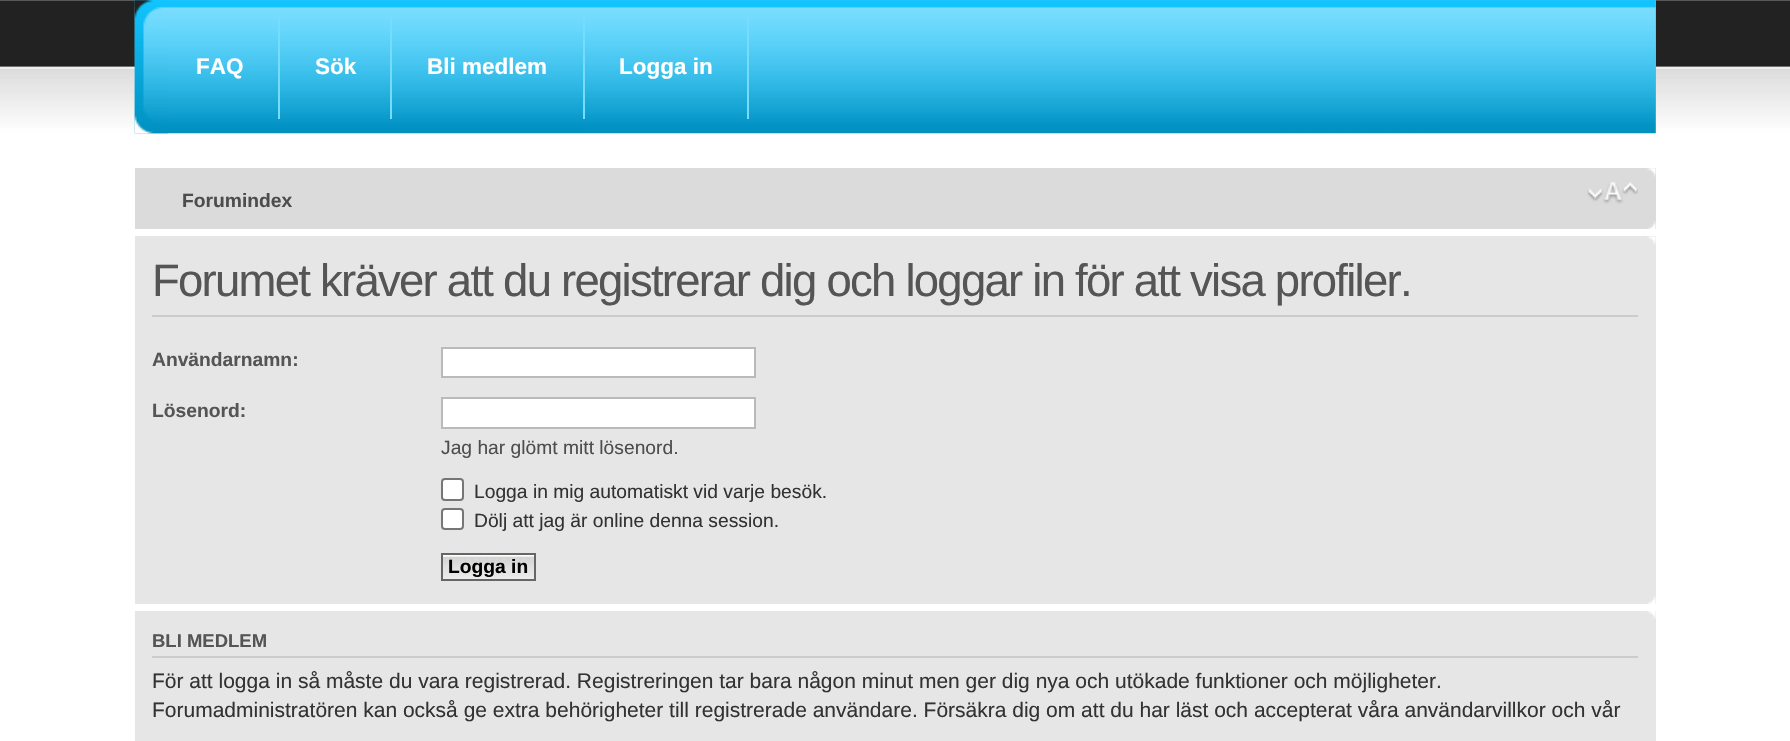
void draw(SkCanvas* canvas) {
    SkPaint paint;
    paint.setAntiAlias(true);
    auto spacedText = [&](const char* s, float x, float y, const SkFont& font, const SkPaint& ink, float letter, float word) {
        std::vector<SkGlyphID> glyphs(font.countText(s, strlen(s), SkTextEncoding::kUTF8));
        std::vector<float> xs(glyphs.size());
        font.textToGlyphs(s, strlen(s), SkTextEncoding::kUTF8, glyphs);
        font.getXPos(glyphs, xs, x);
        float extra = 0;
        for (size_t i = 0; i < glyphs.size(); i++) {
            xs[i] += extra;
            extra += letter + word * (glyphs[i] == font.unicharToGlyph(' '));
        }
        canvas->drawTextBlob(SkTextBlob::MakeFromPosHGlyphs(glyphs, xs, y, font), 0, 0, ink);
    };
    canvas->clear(0xFFFFFFFF);
    canvas->drawImageRect(SkImages::DeferredFromEncodedData(SkData::MakeFromFileName("img1.png")), SkRect::MakeXYWH(0, 0, 1790, 133), SkSamplingOptions());
    paint.setColor(0xFF45C5F0);
    canvas->drawRect(SkRect::MakeXYWH(135, 0, 1521, 133), paint);
    canvas->drawImageRect(SkImages::DeferredFromEncodedData(SkData::MakeFromFileName("img2.png")), SkRect::MakeXYWH(134, 0, 1522, 134), SkSamplingOptions());
    canvas->drawImageRect(SkImages::DeferredFromEncodedData(SkData::MakeFromFileName("img3.png")), SkRect::MakeXYWH(134, 0, 34, 134), SkSamplingOptions());
    paint.setColor(0xFF76DCFD);
    canvas->drawRect(SkRect::MakeXYWH(278, 12, 2, 107), paint);
    SkFont font1(fontMgr->matchFamilyStyle("Liberation Sans", SkFontStyle::Bold()), 22.5f);
    font1.setSubpixel(true);
    paint.setColor(0xFFFFFFFF);
    canvas->drawString("FAQ", 196, 74, font1, paint);
    paint.setColor(0xFF76DCFD);
    canvas->drawRect(SkRect::MakeXYWH(390, 12, 2, 107), paint);
    paint.setColor(0xFFFFFFFF);
    canvas->drawString("Sök", 315, 74, font1, paint);
    paint.setColor(0xFF76DCFD);
    canvas->drawRect(SkRect::MakeXYWH(583, 12, 2, 107), paint);
    paint.setColor(0xFFFFFFFF);
    canvas->drawString("Bli medlem", 427, 74, font1, paint);
    paint.setColor(0xFF76DCFD);
    canvas->drawRect(SkRect::MakeXYWH(747, 12, 2, 107), paint);
    paint.setColor(0xFFFFFFFF);
    canvas->drawString("Logga in", 619, 74, font1, paint);
    paint.setColor(0xFFDBDBDB);
    canvas->drawRect(SkRect::MakeXYWH(135, 168, 1521, 61), paint);
    canvas->drawImageRect(SkImages::DeferredFromEncodedData(SkData::MakeFromFileName("img4.png")), SkRect::MakeXYWH(1647, 168, 9, 9), SkSamplingOptions());
    SkFont font2(fontMgr->matchFamilyStyle("Liberation Sans", SkFontStyle::Bold()), 19.25f);
    font2.setSubpixel(true);
    paint.setColor(0xFF4D4D4D);
    canvas->drawString("Forumindex", 182, 207, font2, paint);
    canvas->drawImageRect(SkImages::DeferredFromEncodedData(SkData::MakeFromFileName("img5.png")), SkRect::MakeXYWH(1587, 182, 51, 22), SkSamplingOptions());
    canvas->drawImageRect(SkImages::DeferredFromEncodedData(SkData::MakeFromFileName("img6.png")), SkRect::MakeXYWH(1647, 221, 9, 8), SkSamplingOptions());
    paint.setColor(0xFFE6E6E6);
    canvas->drawRect(SkRect::MakeXYWH(135, 236, 1521, 368), paint);
    canvas->drawImageRect(SkImages::DeferredFromEncodedData(SkData::MakeFromFileName("img7.png")), SkRect::MakeXYWH(1647, 236, 9, 9), SkSamplingOptions());
    paint.setColor(0xFFCCCCCC);
    canvas->drawRect(SkRect::MakeXYWH(152, 315, 1486, 2), paint);
    SkFont font3(fontMgr->matchFamilyStyle("Liberation Sans", SkFontStyle::Normal()), 45.5f);
    font3.setSubpixel(true);
    paint.setColor(0xFF555555);
    spacedText("Forumet kräver att du registrerar dig och loggar in för att visa profiler.", 152, 296, font3, paint, -1.75f, 0);
    canvas->drawString("Användarnamn:", 152, 366, font2, paint);
    paint.setColor(0xFFFFFFFF);
    canvas->drawRect(SkRect::MakeXYWH(442, 348, 313, 29), paint);
    paint.setStyle(SkPaint::kStroke_Style);
    paint.setStrokeWidth(2);
    paint.setColor(0xFFBABABA);
    canvas->drawRect(SkRect::MakeXYWH(442, 348, 313, 29), paint);
    paint.setStyle(SkPaint::kFill_Style);
    paint.setColor(0xFF555555);
    canvas->drawString("Lösenord:", 152, 417, font2, paint);
    paint.setColor(0xFFFFFFFF);
    canvas->drawRect(SkRect::MakeXYWH(442, 398, 313, 30), paint);
    paint.setStyle(SkPaint::kStroke_Style);
    paint.setColor(0xFFBABABA);
    canvas->drawRect(SkRect::MakeXYWH(442, 398, 313, 30), paint);
    SkFont font4(fontMgr->matchFamilyStyle("Liberation Sans", SkFontStyle::Normal()), 19.25f);
    font4.setSubpixel(true);
    paint.setStyle(SkPaint::kFill_Style);
    paint.setColor(0xFF4D4D4D);
    canvas->drawString("Jag har glömt mitt lösenord.", 441, 454, font4, paint);
    paint.setColor(0xFFFFFFFF);
    canvas->drawRoundRect(SkRect::MakeXYWH(442, 479, 21, 21), 3, 3, paint);
    paint.setStyle(SkPaint::kStroke_Style);
    paint.setColor(0xFF767676);
    canvas->drawRoundRect(SkRect::MakeXYWH(442, 479, 21, 21), 3, 3, paint);
    paint.setStyle(SkPaint::kFill_Style);
    paint.setColor(0xFF333333);
    canvas->drawString("Logga in mig automatiskt vid varje besök.", 474, 498, font4, paint);
    paint.setColor(0xFFFFFFFF);
    canvas->drawRoundRect(SkRect::MakeXYWH(442, 509, 21, 20), 3, 3, paint);
    paint.setStyle(SkPaint::kStroke_Style);
    paint.setColor(0xFF767676);
    canvas->drawRoundRect(SkRect::MakeXYWH(442, 509, 21, 20), 3, 3, paint);
    paint.setStyle(SkPaint::kFill_Style);
    paint.setColor(0xFF333333);
    canvas->drawString("Dölj att jag är online denna session.", 474, 527, font4, paint);
    canvas->drawImageRect(SkImages::DeferredFromEncodedData(SkData::MakeFromFileName("img8.png")), SkRect::MakeXYWH(443, 555, 91, 24), SkSamplingOptions());
    paint.setStyle(SkPaint::kStroke_Style);
    paint.setColor(0xFF666666);
    canvas->drawRect(SkRect::MakeXYWH(442, 554, 93, 26), paint);
    paint.setStyle(SkPaint::kFill_Style);
    paint.setColor(0xFF000000);
    canvas->drawString("Logga in", 448, 573, font2, paint);
    canvas->drawImageRect(SkImages::DeferredFromEncodedData(SkData::MakeFromFileName("img9.png")), SkRect::MakeXYWH(1647, 596, 9, 8), SkSamplingOptions());
    paint.setColor(0xFFE6E6E6);
    canvas->drawRect(SkRect::MakeXYWH(135, 611, 1521, 130), paint);
    canvas->drawImageRect(SkImages::DeferredFromEncodedData(SkData::MakeFromFileName("img10.png")), SkRect::MakeXYWH(1647, 611, 9, 8), SkSamplingOptions());
    paint.setColor(0xFFCCCCCC);
    canvas->drawRect(SkRect::MakeXYWH(152, 656, 1486, 2), paint);
    SkFont font5(fontMgr->matchFamilyStyle("Liberation Sans", SkFontStyle::Bold()), 18.5f);
    font5.setSubpixel(true);
    paint.setColor(0xFF555555);
    canvas->drawString("BLI MEDLEM", 152, 647, font5, paint);
    SkFont font6(fontMgr->matchFamilyStyle("Liberation Sans", SkFontStyle::Normal()), 21);
    font6.setSubpixel(true);
    paint.setColor(0xFF333333);
    canvas->drawString("För att logga in så måste du vara registrerad. Registreringen tar bara någon minut men ger dig nya och utökade funktioner och möjligheter.", 152, 688, font6, paint);
    canvas->drawString("Forumadministratören kan också ge extra behörigheter till registrerade användare. Försäkra dig om att du har läst och accepterat våra användarvillkor och vår", 152, 717, font6, paint);
}
